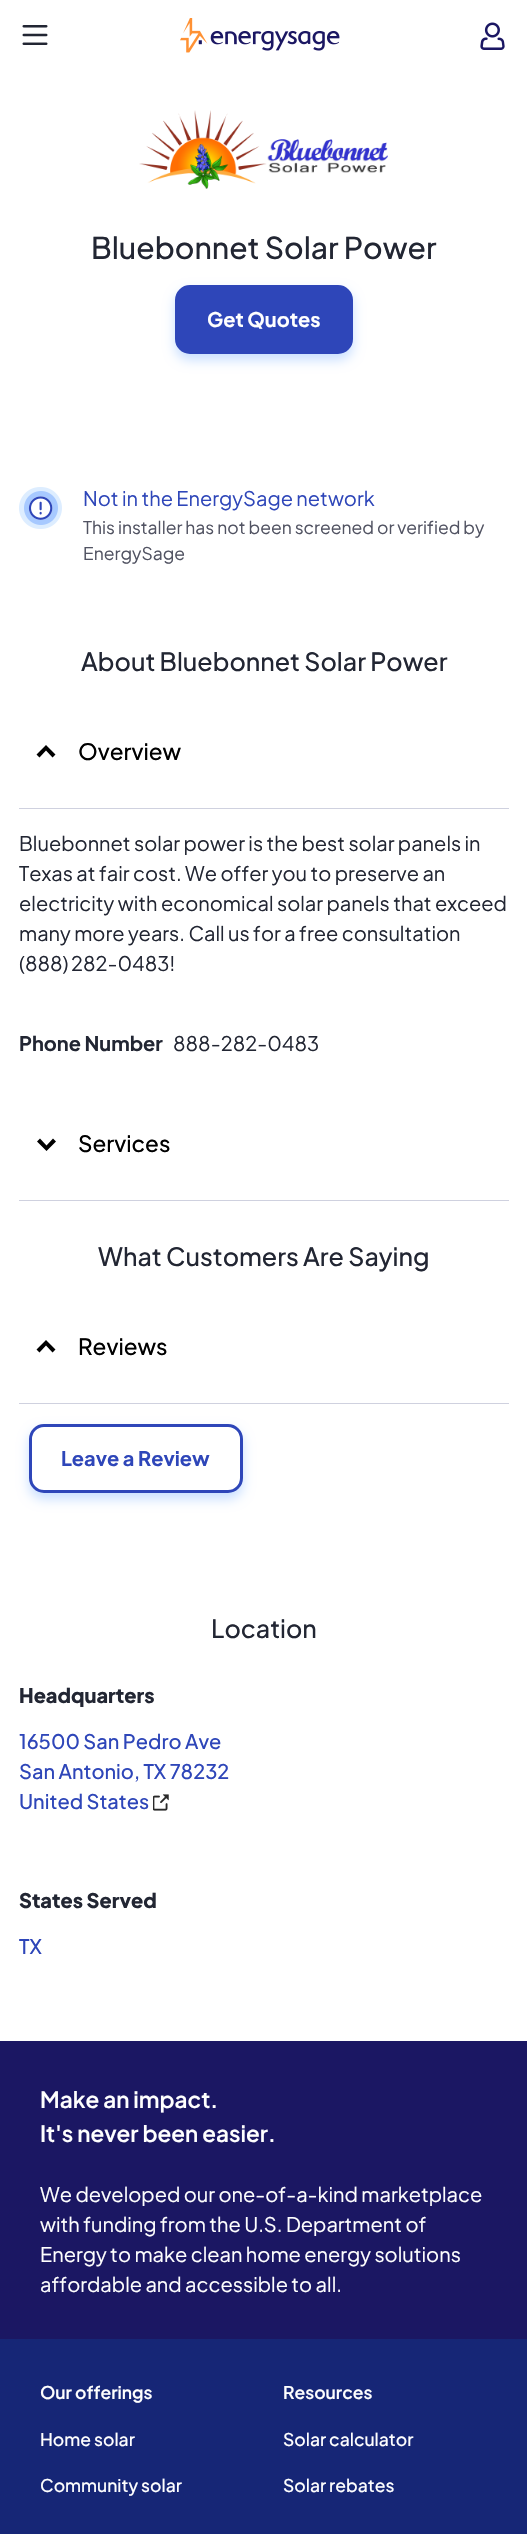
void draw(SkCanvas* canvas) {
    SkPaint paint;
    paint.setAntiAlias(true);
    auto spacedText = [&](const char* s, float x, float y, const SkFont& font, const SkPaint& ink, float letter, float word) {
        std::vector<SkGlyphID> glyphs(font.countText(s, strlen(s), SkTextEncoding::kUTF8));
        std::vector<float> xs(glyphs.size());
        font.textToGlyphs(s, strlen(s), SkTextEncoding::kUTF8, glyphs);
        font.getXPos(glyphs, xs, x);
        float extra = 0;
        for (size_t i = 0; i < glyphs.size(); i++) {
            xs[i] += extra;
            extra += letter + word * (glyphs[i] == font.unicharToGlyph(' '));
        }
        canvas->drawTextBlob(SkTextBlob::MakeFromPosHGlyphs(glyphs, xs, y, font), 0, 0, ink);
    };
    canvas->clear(0xFFFFFFFF);
    canvas->drawImageRect(SkImages::DeferredFromEncodedData(SkData::MakeFromFileName("img1.png")), SkRect::MakeXYWH(22, 25, 26, 20), SkSamplingOptions());
    canvas->drawImageRect(SkImages::DeferredFromEncodedData(SkData::MakeFromFileName("img2.png")), SkRect::MakeXYWH(180, 18, 160, 35), SkSamplingOptions());
    canvas->drawImageRect(SkImages::DeferredFromEncodedData(SkData::MakeFromFileName("img3.png")), SkRect::MakeXYWH(480, 22, 25, 28), SkSamplingOptions());
    canvas->drawImageRect(SkImages::DeferredFromEncodedData(SkData::MakeFromFileName("img4.png")), SkRect::MakeXYWH(139, 110, 249, 79), SkSamplingOptions());
    SkFont font1(fontMgr->matchFamilyStyle("Plus Jakarta Sans", SkFontStyle(500, SkFontStyle::kNormal_Width, SkFontStyle::kUpright_Slant)), 30);
    font1.setSubpixel(true);
    paint.setColor(0xFF222633);
    canvas->drawString("Bluebonnet Solar Power", 91, 259, font1, paint);
    paint.setColor(0xFFC8DFFF);
    paint.setMaskFilter(SkMaskFilter::MakeBlur(kNormal_SkBlurStyle, 6));
    canvas->drawRoundRect(SkRect::MakeXYWH(175, 291, 178, 69), 15, 15, paint);
    paint.setMaskFilter(nullptr);
    paint.setColor(0xFF2E46B9);
    canvas->drawRoundRect(SkRect::MakeXYWH(176.5f, 286.5f, 175, 66), 13.5f, 13.5f, paint);
    paint.setStyle(SkPaint::kStroke_Style);
    paint.setStrokeWidth(3);
    canvas->drawRoundRect(SkRect::MakeXYWH(176.5f, 286.5f, 175, 66), 13.5f, 13.5f, paint);
    SkFont font2(fontMgr->matchFamilyStyle("Plus Jakarta Sans", SkFontStyle::Bold()), 20);
    font2.setSubpixel(true);
    paint.setStyle(SkPaint::kFill_Style);
    paint.setColor(0xFFFFFFFF);
    canvas->drawString("Get Quotes", 207, 327, font2, paint);
    canvas->drawImageRect(SkImages::DeferredFromEncodedData(SkData::MakeFromFileName("img5.png")), SkRect::MakeXYWH(19, 487, 43, 42), SkSamplingOptions());
    SkFont font3(fontMgr->matchFamilyStyle("Plus Jakarta Sans", SkFontStyle::Normal()), 20);
    font3.setSubpixel(true);
    paint.setColor(0xFF2E46B9);
    canvas->drawString("Not in the EnergySage network", 83, 506, font3, paint);
    SkFont font4(fontMgr->matchFamilyStyle("Plus Jakarta Sans", SkFontStyle::Normal()), 17.5f);
    font4.setSubpixel(true);
    paint.setColor(0xFF515362);
    canvas->drawString("This installer has not been screened or verified by", 83, 534, font4, paint);
    canvas->drawString("EnergySage", 83, 560, font4, paint);
    SkFont font5(fontMgr->matchFamilyStyle("Plus Jakarta Sans", SkFontStyle(500, SkFontStyle::kNormal_Width, SkFontStyle::kUpright_Slant)), 25);
    font5.setSubpixel(true);
    paint.setColor(0xFF222633);
    canvas->drawString("About Bluebonnet Solar Power", 81, 671, font5, paint);
    paint.setColor(0xFFCFD1DF);
    canvas->drawRect(SkRect::MakeXYWH(19, 808, 490, 1), paint);
    paint.setColor(0xFF000000);
    canvas->drawPath(SkPathBuilder(SkPathFillType::kEvenOdd).moveTo(55.5f, 754.5f).lineTo(52.5f, 757.5f).lineTo(46, 750.5f).lineTo(39.5f, 757.5f).lineTo(36.5f, 754.5f).lineTo(46, 745).close().detach(), paint);
    SkFont font6(fontMgr->matchFamilyStyle("Plus Jakarta Sans", SkFontStyle(500, SkFontStyle::kNormal_Width, SkFontStyle::kUpright_Slant)), 22.5f);
    font6.setSubpixel(true);
    canvas->drawString("Overview", 78, 760, font6, paint);
    paint.setColor(0xFF222633);
    canvas->drawString("Bluebonnet solar power is the best solar panels in", 19, 851, font3, paint);
    canvas->drawString("Texas at fair cost. We offer you to preserve an", 19, 881, font3, paint);
    canvas->drawString("electricity with economical solar panels that exceed", 19, 911, font3, paint);
    canvas->drawString("many more years. Call us for a free consultation", 19, 941, font3, paint);
    spacedText("(888) 282-0483!", 19, 971, font3, paint, 0, -1);
    canvas->drawString("Phone Number", 19, 1051, font2, paint);
    canvas->drawString("888-282-0483", 173, 1051, font3, paint);
    paint.setColor(0xFFCFD1DF);
    canvas->drawRect(SkRect::MakeXYWH(19, 1200, 490, 1), paint);
    paint.setColor(0xFF000000);
    canvas->drawPath(SkPathBuilder(SkPathFillType::kEvenOdd).moveTo(37, 1141.5f).lineTo(40, 1138.5f).lineTo(46.5f, 1145.5f).lineTo(53, 1138.5f).lineTo(56, 1141.5f).lineTo(46.5f, 1151).close().detach(), paint);
    canvas->drawString("Services", 78, 1152, font6, paint);
    paint.setColor(0xFF222633);
    canvas->drawString("What Customers Are Saying", 98, 1266, font5, paint);
    paint.setColor(0xFFCFD1DF);
    canvas->drawRect(SkRect::MakeXYWH(19, 1403, 490, 1), paint);
    paint.setColor(0xFF000000);
    canvas->drawPath(SkPathBuilder(SkPathFillType::kEvenOdd).moveTo(55.5f, 1349.5f).lineTo(52.5f, 1352.5f).lineTo(46, 1345.5f).lineTo(39.5f, 1352.5f).lineTo(36.5f, 1349.5f).lineTo(46, 1340).close().detach(), paint);
    canvas->drawString("Reviews", 78, 1355, font6, paint);
    paint.setColor(0xFFC8DFFF);
    paint.setMaskFilter(SkMaskFilter::MakeBlur(kNormal_SkBlurStyle, 6));
    canvas->drawRoundRect(SkRect::MakeXYWH(29, 1430, 214, 69), 15, 15, paint);
    paint.setMaskFilter(nullptr);
    paint.setColor(0xFFFFFFFF);
    canvas->drawRoundRect(SkRect::MakeXYWH(30.5f, 1425.5f, 211, 66), 13.5f, 13.5f, paint);
    paint.setStyle(SkPaint::kStroke_Style);
    paint.setColor(0xFF2E46B9);
    canvas->drawRoundRect(SkRect::MakeXYWH(30.5f, 1425.5f, 211, 66), 13.5f, 13.5f, paint);
    paint.setStyle(SkPaint::kFill_Style);
    canvas->drawString("Leave a Review", 61, 1466, font2, paint);
    paint.setColor(0xFF222633);
    canvas->drawString("Location", 211, 1638, font5, paint);
    SkFont font7(fontMgr->matchFamilyStyle("Plus Jakarta Sans", SkFontStyle(800, SkFontStyle::kNormal_Width, SkFontStyle::kUpright_Slant)), 20);
    font7.setSubpixel(true);
    canvas->drawString("Headquarters", 19, 1703, font7, paint);
    SkFont font8(fontMgr->matchFamilyStyle("Plus Jakarta Sans", SkFontStyle(500, SkFontStyle::kNormal_Width, SkFontStyle::kUpright_Slant)), 20);
    font8.setSubpixel(true);
    paint.setColor(0xFF2E46B9);
    canvas->drawString("16500 San Pedro Ave", 19, 1749, font8, paint);
    canvas->drawString("San Antonio, TX 78232", 19, 1779, font8, paint);
    canvas->drawString("United States", 19, 1809, font8, paint);
    canvas->drawImageRect(SkImages::DeferredFromEncodedData(SkData::MakeFromFileName("img6.png")), SkRect::MakeXYWH(153, 1794, 16, 17), SkSamplingOptions());
    paint.setColor(0xFF222633);
    canvas->drawString("States Served", 19, 1908, font7, paint);
    paint.setColor(0xFF2E46B9);
    canvas->drawString("TX", 19, 1954, font8, paint);
    paint.setColor(0xFF1B1763);
    canvas->drawRect(SkRect::MakeXYWH(0, 2041, 527, 298), paint);
    SkFont font9(fontMgr->matchFamilyStyle("Plus Jakarta Sans", SkFontStyle(600, SkFontStyle::kNormal_Width, SkFontStyle::kUpright_Slant)), 22.5f);
    font9.setSubpixel(true);
    paint.setColor(0xFFFFFFFF);
    canvas->drawString("Make an impact.", 40, 2108, font9, paint);
    canvas->drawString("It's never been easier.", 40, 2142, font9, paint);
    canvas->drawString("We developed our one-of-a-kind marketplace", 40, 2202, font3, paint);
    canvas->drawString("with funding from the U.S. Department of", 40, 2232, font3, paint);
    canvas->drawString("Energy to make clean home energy solutions", 40, 2262, font3, paint);
    canvas->drawString("affordable and accessible to all.", 40, 2292, font3, paint);
    paint.setColor(0xFF162676);
    canvas->drawRect(SkRect::MakeXYWH(0, 2339, 527, 195), paint);
    SkFont font10(fontMgr->matchFamilyStyle("Plus Jakarta Sans", SkFontStyle(600, SkFontStyle::kNormal_Width, SkFontStyle::kUpright_Slant)), 17.5f);
    font10.setSubpixel(true);
    paint.setColor(0xFFFFFFFF);
    canvas->drawString("Our offerings", 40, 2399, font10, paint);
    SkFont font11(fontMgr->matchFamilyStyle("Plus Jakarta Sans", SkFontStyle(500, SkFontStyle::kNormal_Width, SkFontStyle::kUpright_Slant)), 17.5f);
    font11.setSubpixel(true);
    canvas->drawString("Home solar", 40, 2446, font11, paint);
    canvas->drawString("Community solar", 40, 2492, font11, paint);
    canvas->drawString("Resources", 283, 2399, font10, paint);
    canvas->drawString("Solar calculator", 283, 2446, font11, paint);
    canvas->drawString("Solar rebates", 283, 2492, font11, paint);
}
